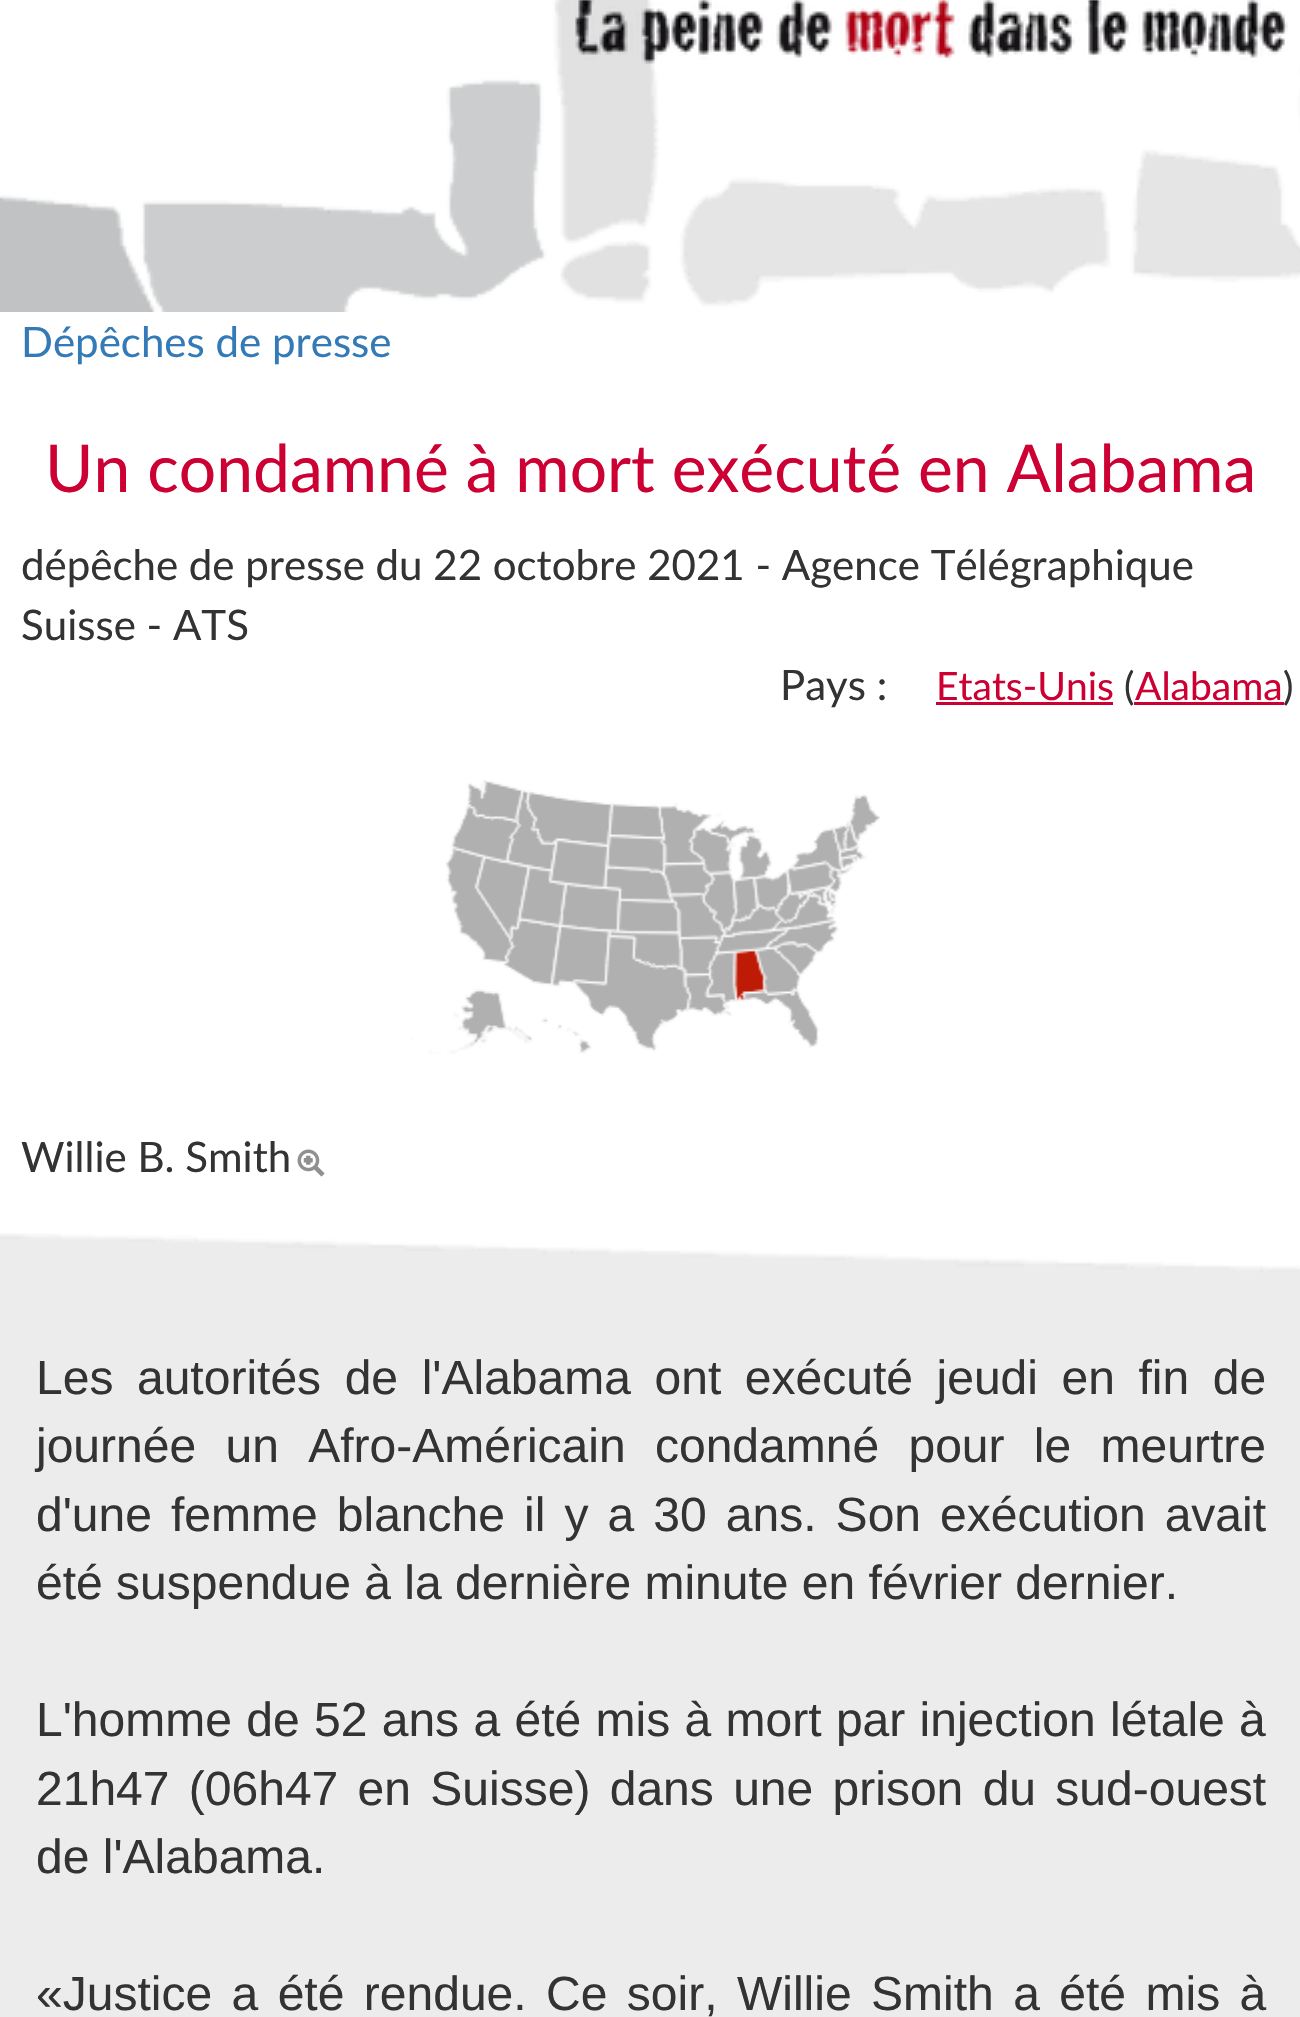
void draw(SkCanvas* canvas) {
    SkPaint paint;
    paint.setAntiAlias(true);
    auto spacedText = [&](const char* s, float x, float y, const SkFont& font, const SkPaint& ink, float letter, float word) {
        std::vector<SkGlyphID> glyphs(font.countText(s, strlen(s), SkTextEncoding::kUTF8));
        std::vector<float> xs(glyphs.size());
        font.textToGlyphs(s, strlen(s), SkTextEncoding::kUTF8, glyphs);
        font.getXPos(glyphs, xs, x);
        float extra = 0;
        for (size_t i = 0; i < glyphs.size(); i++) {
            xs[i] += extra;
            extra += letter + word * (glyphs[i] == font.unicharToGlyph(' '));
        }
        canvas->drawTextBlob(SkTextBlob::MakeFromPosHGlyphs(glyphs, xs, y, font), 0, 0, ink);
    };
    canvas->clear(0xFFFFFFFF);
    canvas->drawImageRect(SkImages::DeferredFromEncodedData(SkData::MakeFromFileName("img1.png")), SkRect::MakeXYWH(0, 0, 1300, 312), SkSamplingOptions());
    canvas->drawImageRect(SkImages::DeferredFromEncodedData(SkData::MakeFromFileName("img2.png")), SkRect::MakeXYWH(575, 0, 713, 64), SkSamplingOptions());
    SkFont font1(fontMgr->matchFamilyStyle("Lato", SkFontStyle::Normal()), 42);
    font1.setSubpixel(true);
    paint.setColor(0xFF337AB7);
    canvas->drawString("Dépêches de presse", 21, 357, font1, paint);
    SkFont font2(fontMgr->matchFamilyStyle("Lato", SkFontStyle::Normal()), 66);
    font2.setSubpixel(true);
    paint.setColor(0xFFCC0033);
    canvas->drawString("Un condamné à mort exécuté en Alabama", 45, 492, font2, paint);
    paint.setColor(0xFF333333);
    canvas->drawString("dépêche de presse du 22 octobre 2021 - Agence Télégraphique", 21, 580, font1, paint);
    canvas->drawString("Suisse - ATS", 21, 640, font1, paint);
    canvas->drawString("Pays :", 780, 700, font1, paint);
    SkFont font3(fontMgr->matchFamilyStyle("Lato", SkFontStyle::Normal()), 39);
    font3.setSubpixel(true);
    paint.setColor(0xFFCC0033);
    canvas->drawString("Etats-Unis", 936, 700, font3, paint);
    canvas->drawRect(SkRect::MakeXYWH(936, 702, 177, 3), paint);
    paint.setColor(0xFF333333);
    canvas->drawString("(", 1124, 700, font3, paint);
    paint.setColor(0xFFCC0033);
    canvas->drawRect(SkRect::MakeXYWH(1134, 702, 150, 3), paint);
    canvas->drawString("Alabama", 1135, 700, font3, paint);
    paint.setColor(0xFF333333);
    canvas->drawString(")", 1283, 700, font3, paint);
    canvas->drawImageRect(SkImages::DeferredFromEncodedData(SkData::MakeFromFileName("img3.png")), SkRect::MakeXYWH(411, 780, 470, 274), SkSamplingOptions());
    canvas->drawString("Willie B. Smith", 21, 1172, font1, paint);
    canvas->drawImageRect(SkImages::DeferredFromEncodedData(SkData::MakeFromFileName("img4.png")), SkRect::MakeXYWH(297, 1149, 28, 28), SkSamplingOptions());
    paint.setColor(0xFFECECED);
    canvas->drawRect(SkRect::MakeXYWH(0, 1347, 1300, 670), paint);
    canvas->drawImageRect(SkImages::DeferredFromEncodedData(SkData::MakeFromFileName("img5.png")), SkRect::MakeXYWH(0, 1233, 1300, 114), SkSamplingOptions());
    SkFont font4(fontMgr->matchFamilyStyle("Liberation Sans", SkFontStyle::Normal()), 48);
    font4.setSubpixel(true);
    paint.setColor(0xFF333333);
    spacedText("Les autorités de l'Alabama ont exécuté jeudi en fin de", 36, 1394, font4, paint, 0, 10.25f);
    spacedText("journée un Afro-Américain condamné pour le meurtre", 36, 1462, font4, paint, 0, 16);
    spacedText("d'une femme blanche il y a 30 ans. Son exécution avait", 36, 1531, font4, paint, 0, 5.75f);
    canvas->drawString("été suspendue à la dernière minute en février dernier.", 36, 1599, font4, paint);
    spacedText("L'homme de 52 ans a été mis à mort par injection létale à", 36, 1736, font4, paint, 0, 1);
    spacedText("21h47 (06h47 en Suisse) dans une prison du sud-ouest", 36, 1805, font4, paint, 0, 6);
    canvas->drawString("de l'Alabama.", 36, 1873, font4, paint);
    spacedText("«Justice a été rendue. Ce soir, Willie Smith a été mis à", 36, 2010, font4, paint, 0, 6.1f);
}
